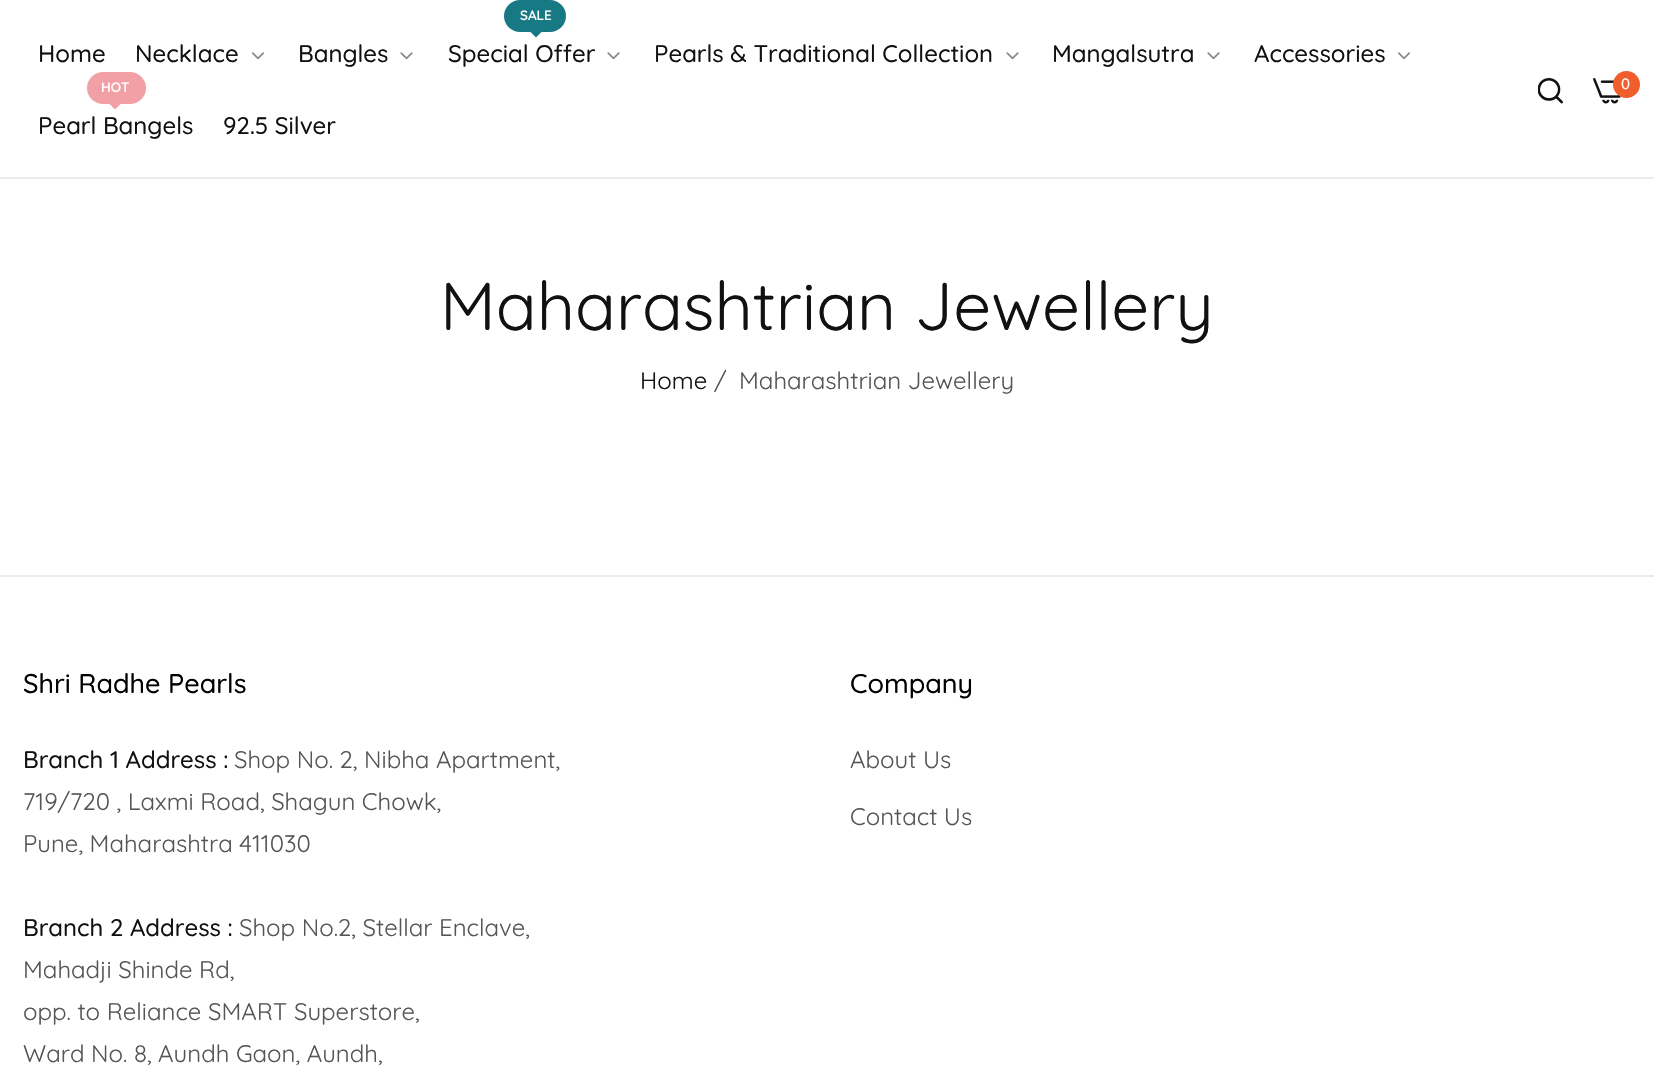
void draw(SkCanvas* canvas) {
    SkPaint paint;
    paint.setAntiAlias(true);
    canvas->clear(0xFFFFFFFF);
    paint.setColor(0xFFEBEBEB);
    canvas->drawRect(SkRect::MakeXYWH(0, 177, 1654, 2), paint);
    SkFont font1(fontMgr->matchFamilyStyle("Quicksand", SkFontStyle(500, SkFontStyle::kNormal_Width, SkFontStyle::kUpright_Slant)), 24);
    font1.setSubpixel(true);
    paint.setColor(0xFF111111);
    canvas->drawString("Home", 38, 62, font1, paint);
    canvas->drawString("Necklace", 135, 62, font1, paint);
    canvas->drawImageRect(SkImages::DeferredFromEncodedData(SkData::MakeFromFileName("img1.png")), SkRect::MakeXYWH(252, 52, 12, 8), SkSamplingOptions());
    canvas->drawString("Bangles", 298, 62, font1, paint);
    canvas->drawImageRect(SkImages::DeferredFromEncodedData(SkData::MakeFromFileName("img2.png")), SkRect::MakeXYWH(400, 52, 13, 8), SkSamplingOptions());
    paint.setColor(0xFF177983);
    canvas->drawRoundRect(SkRect::MakeXYWH(504, 0, 62, 32), 16, 16, paint);
    SkFont font2(fontMgr->matchFamilyStyle("Quicksand", SkFontStyle(600, SkFontStyle::kNormal_Width, SkFontStyle::kUpright_Slant)), 13.5f);
    font2.setSubpixel(true);
    paint.setColor(0xFFFFFFFF);
    canvas->drawString("SALE", 520, 20, font2, paint);
    paint.setColor(0xFF177983);
    canvas->drawPath(SkPathBuilder().moveTo(530, 31.5f).lineTo(542, 31.5f).lineTo(536, 37.5f).close().detach(), paint);
    paint.setColor(0xFF111111);
    canvas->drawString("Special Offer", 448, 62, font1, paint);
    canvas->drawImageRect(SkImages::DeferredFromEncodedData(SkData::MakeFromFileName("img2.png")), SkRect::MakeXYWH(607, 52, 13, 8), SkSamplingOptions());
    canvas->drawString("Pearls & Traditional Collection", 654, 62, font1, paint);
    canvas->drawImageRect(SkImages::DeferredFromEncodedData(SkData::MakeFromFileName("img2.png")), SkRect::MakeXYWH(1006, 52, 13, 8), SkSamplingOptions());
    canvas->drawString("Mangalsutra", 1052, 62, font1, paint);
    canvas->drawImageRect(SkImages::DeferredFromEncodedData(SkData::MakeFromFileName("img2.png")), SkRect::MakeXYWH(1207, 52, 13, 8), SkSamplingOptions());
    canvas->drawString("Accessories", 1254, 62, font1, paint);
    canvas->drawImageRect(SkImages::DeferredFromEncodedData(SkData::MakeFromFileName("img1.png")), SkRect::MakeXYWH(1398, 52, 12, 8), SkSamplingOptions());
    paint.setColor(0xFFF2A0A5);
    canvas->drawRoundRect(SkRect::MakeXYWH(87, 72, 59, 32), 16, 16, paint);
    paint.setColor(0xFFFFFFFF);
    canvas->drawString("HOT", 101, 92, font2, paint);
    paint.setColor(0xFFF2A0A5);
    canvas->drawPath(SkPathBuilder().moveTo(109, 103.5f).lineTo(121, 103.5f).lineTo(115, 109.5f).close().detach(), paint);
    paint.setColor(0xFF111111);
    canvas->drawString("Pearl Bangels", 38, 134, font1, paint);
    canvas->drawString("92.5 Silver", 223, 134, font1, paint);
    canvas->drawImageRect(SkImages::DeferredFromEncodedData(SkData::MakeFromFileName("img3.png")), SkRect::MakeXYWH(1538, 78, 25, 26), SkSamplingOptions());
    canvas->drawImageRect(SkImages::DeferredFromEncodedData(SkData::MakeFromFileName("img4.png")), SkRect::MakeXYWH(1593, 78, 28, 26), SkSamplingOptions());
    paint.setColor(0xFFF05E2D);
    canvas->drawCircle(1626.5f, 84.5f, 13.5f, paint);
    SkFont font3(fontMgr->matchFamilyStyle("Quicksand", SkFontStyle(500, SkFontStyle::kNormal_Width, SkFontStyle::kUpright_Slant)), 15);
    font3.setSubpixel(true);
    paint.setColor(0xFFFFFFFF);
    canvas->drawString("0", 1621, 89, font3, paint);
    SkFont font4(fontMgr->matchFamilyStyle("Quicksand", SkFontStyle::Normal()), 67.5f);
    font4.setSubpixel(true);
    paint.setColor(0xFF111111);
    canvas->drawString("Maharashtrian Jewellery", 440, 330, font4, paint);
    SkFont font5(fontMgr->matchFamilyStyle("Quicksand", SkFontStyle::Normal()), 24);
    font5.setSubpixel(true);
    canvas->drawString("Home", 640, 389, font5, paint);
    paint.setColor(0xFF555555);
    canvas->drawString("/", 714, 389, font5, paint);
    canvas->drawString("Maharashtrian Jewellery", 739, 389, font5, paint);
    paint.setColor(0xFFEBEBEB);
    canvas->drawRect(SkRect::MakeXYWH(0, 575, 1654, 2), paint);
    SkFont font6(fontMgr->matchFamilyStyle("Quicksand", SkFontStyle(500, SkFontStyle::kNormal_Width, SkFontStyle::kUpright_Slant)), 27);
    font6.setSubpixel(true);
    paint.setColor(0xFF000000);
    canvas->drawString("Shri Radhe Pearls", 23, 693, font6, paint);
    paint.setColor(0xFF111111);
    canvas->drawString("Branch 1 Address :", 23, 768, font1, paint);
    paint.setColor(0xFF555555);
    canvas->drawString("Shop No. 2, Nibha Apartment,", 234, 768, font5, paint);
    canvas->drawString("719/720 , Laxmi Road, Shagun Chowk,", 23, 810, font5, paint);
    canvas->drawString("Pune, Maharashtra 411030", 23, 852, font5, paint);
    paint.setColor(0xFF111111);
    canvas->drawString("Branch 2 Address :", 23, 936, font1, paint);
    paint.setColor(0xFF555555);
    canvas->drawString("Shop No.2, Stellar Enclave,", 239, 936, font5, paint);
    canvas->drawString("Mahadji Shinde Rd,", 23, 978, font5, paint);
    canvas->drawString("opp. to Reliance SMART Superstore,", 23, 1020, font5, paint);
    canvas->drawString("Ward No. 8, Aundh Gaon, Aundh,", 23, 1062, font5, paint);
    paint.setColor(0xFF000000);
    canvas->drawString("Company", 850, 693, font6, paint);
    paint.setColor(0xFF555555);
    canvas->drawString("About Us", 850, 768, font5, paint);
    canvas->drawString("Contact Us", 850, 825, font5, paint);
}
